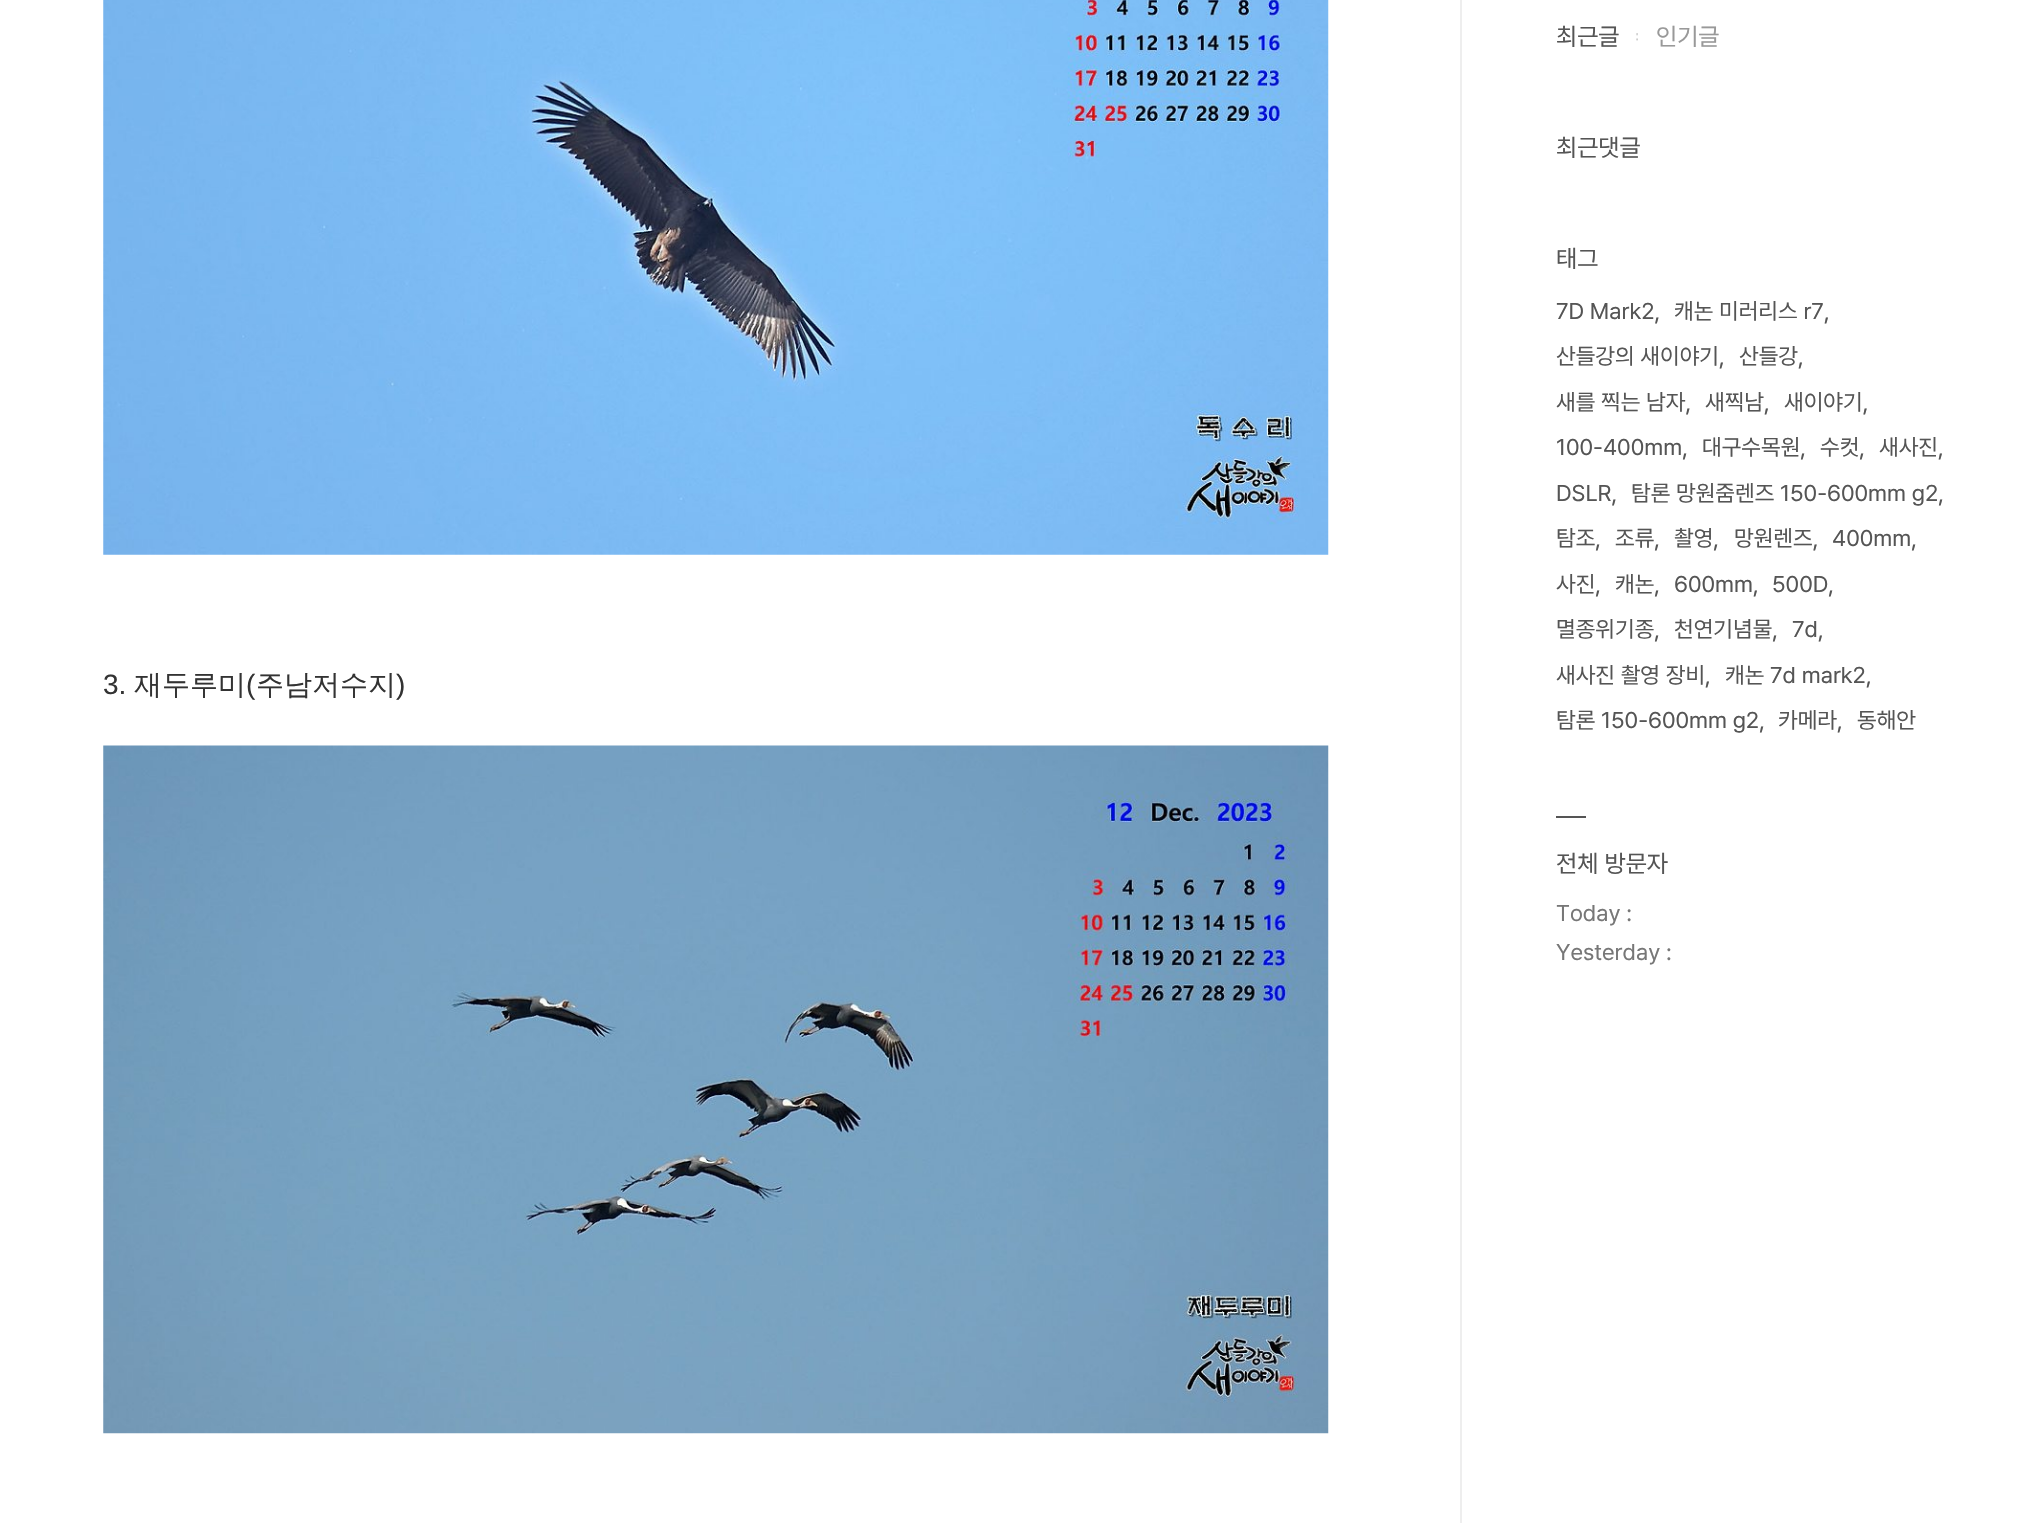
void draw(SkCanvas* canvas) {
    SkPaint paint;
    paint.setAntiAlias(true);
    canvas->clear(0xFFFFFFFF);
    canvas->drawImageRect(SkImages::DeferredFromEncodedData(SkData::MakeFromFileName("img1.png")), SkRect::MakeXYWH(103, 0, 1226, 555), SkSamplingOptions());
    SkFont font1(fontMgr->matchFamilyStyle("Liberation Sans", SkFontStyle::Normal()), 28);
    font1.setSubpixel(true);
    paint.setColor(0xFF333333);
    canvas->drawString("3.", 103, 694, font1, paint);
    SkFont font2(fontMgr->matchFamilyStyle("WenQuanYi Zen Hei", SkFontStyle(500, SkFontStyle::kNormal_Width, SkFontStyle::kUpright_Slant)), 28);
    font2.setSubpixel(true);
    canvas->drawString("재두루미", 134, 694, font2, paint);
    canvas->drawString("(", 246, 694, font1, paint);
    canvas->drawString("주남저수지", 256, 694, font2, paint);
    canvas->drawString(")", 396, 694, font1, paint);
    canvas->drawImageRect(SkImages::DeferredFromEncodedData(SkData::MakeFromFileName("img2.png")), SkRect::MakeXYWH(103, 745, 1226, 689), SkSamplingOptions());
    paint.setColor(0xFFEEEEEE);
    canvas->drawRect(SkRect::MakeXYWH(1460, 0, 2, 1523), paint);
    SkFont font3(fontMgr->matchFamilyStyle("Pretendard", SkFontStyle::Normal()), 24.5f);
    font3.setSubpixel(true);
    paint.setColor(0xFF555555);
    canvas->drawString("최근글", 1556, 45, font3, paint);
    canvas->drawImageRect(SkImages::DeferredFromEncodedData(SkData::MakeFromFileName("img3.png")), SkRect::MakeXYWH(1636, 33, 2, 8), SkSamplingOptions());
    paint.setColor(0xFF999999);
    canvas->drawString("인기글", 1656, 45, font3, paint);
    paint.setColor(0xFF555555);
    canvas->drawString("최근댓글", 1556, 156, font3, paint);
    canvas->drawString("태그", 1556, 267, font3, paint);
    SkFont font4(fontMgr->matchFamilyStyle("Pretendard", SkFontStyle::Normal()), 22.75f);
    font4.setSubpixel(true);
    canvas->drawString("7D Mark2,", 1556, 319, font4, paint);
    canvas->drawString("캐논 미러리스 r7,", 1674, 319, font4, paint);
    canvas->drawString("산들강의 새이야기,", 1556, 364, font4, paint);
    canvas->drawString("산들강,", 1739, 364, font4, paint);
    canvas->drawString("새를 찍는 남자,", 1556, 410, font4, paint);
    canvas->drawString("새찍남,", 1705, 410, font4, paint);
    canvas->drawString("새이야기,", 1784, 410, font4, paint);
    canvas->drawString("100-400mm,", 1556, 455, font4, paint);
    canvas->drawString("대구수목원,", 1702, 455, font4, paint);
    canvas->drawString("수컷,", 1820, 455, font4, paint);
    canvas->drawString("새사진,", 1879, 455, font4, paint);
    canvas->drawString("DSLR,", 1556, 501, font4, paint);
    canvas->drawString("탐론 망원줌렌즈 150-600mm g2,", 1631, 501, font4, paint);
    canvas->drawString("탐조,", 1556, 546, font4, paint);
    canvas->drawString("조류,", 1615, 546, font4, paint);
    canvas->drawString("촬영,", 1674, 546, font4, paint);
    canvas->drawString("망원렌즈,", 1734, 546, font4, paint);
    canvas->drawString("400mm,", 1832, 546, font4, paint);
    canvas->drawString("사진,", 1556, 592, font4, paint);
    canvas->drawString("캐논,", 1615, 592, font4, paint);
    canvas->drawString("600mm,", 1674, 592, font4, paint);
    canvas->drawString("500D,", 1772, 592, font4, paint);
    canvas->drawString("멸종위기종,", 1556, 637, font4, paint);
    canvas->drawString("천연기념물,", 1674, 637, font4, paint);
    canvas->drawString("7d,", 1792, 637, font4, paint);
    canvas->drawString("새사진 촬영 장비,", 1556, 683, font4, paint);
    canvas->drawString("캐논 7d mark2,", 1725, 683, font4, paint);
    canvas->drawString("탐론 150-600mm g2,", 1556, 728, font4, paint);
    canvas->drawString("카메라,", 1778, 728, font4, paint);
    canvas->drawString("동해안", 1857, 728, font4, paint);
    canvas->drawRect(SkRect::MakeXYWH(1556, 816, 30, 2), paint);
    canvas->drawString("전체 방문자", 1556, 872, font3, paint);
    paint.setColor(0xFF777777);
    canvas->drawString("Today :", 1556, 921, font4, paint);
    canvas->drawString("Yesterday :", 1556, 960, font4, paint);
}
